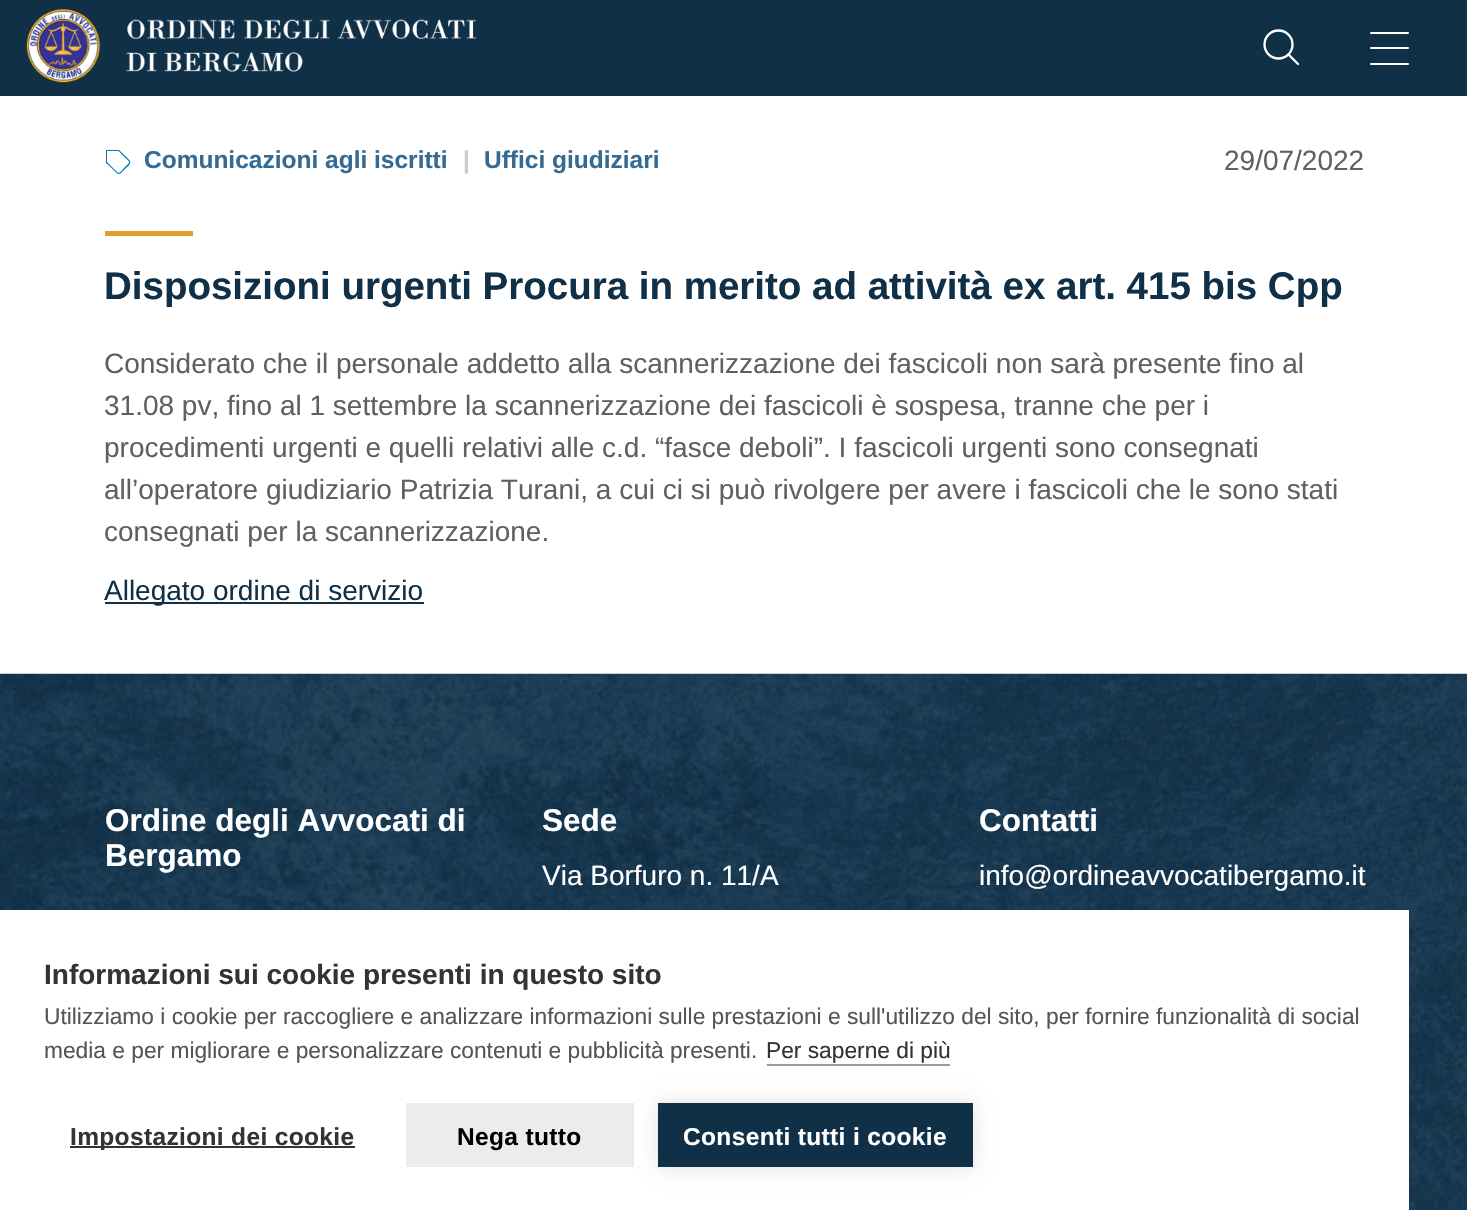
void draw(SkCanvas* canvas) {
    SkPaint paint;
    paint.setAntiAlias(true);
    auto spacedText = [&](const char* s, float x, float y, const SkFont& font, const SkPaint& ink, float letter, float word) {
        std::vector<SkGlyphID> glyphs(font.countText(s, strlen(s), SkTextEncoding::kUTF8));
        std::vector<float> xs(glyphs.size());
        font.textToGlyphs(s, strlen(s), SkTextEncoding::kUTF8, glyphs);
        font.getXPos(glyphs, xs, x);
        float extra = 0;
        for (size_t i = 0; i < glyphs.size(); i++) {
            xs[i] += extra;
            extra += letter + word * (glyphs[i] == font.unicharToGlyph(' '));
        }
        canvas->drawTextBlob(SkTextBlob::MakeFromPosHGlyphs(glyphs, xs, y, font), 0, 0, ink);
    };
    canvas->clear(0xFFFFFFFF);
    paint.setColor(0xFF0F3047);
    canvas->drawRect(SkRect::MakeXYWH(0, 0, 1467, 96), paint);
    canvas->drawImageRect(SkImages::DeferredFromEncodedData(SkData::MakeFromFileName("img1.png")), SkRect::MakeXYWH(26, 8, 450, 75), SkSamplingOptions());
    paint.setStyle(SkPaint::kStroke_Style);
    paint.setStrokeWidth(2.3f);
    paint.setColor(0xFFFFFFFF);
    canvas->drawCircle(1278.5f, 44.5f, 14, paint);
    paint.setStrokeCap(SkPaint::kRound_Cap);
    paint.setStrokeJoin(SkPaint::kRound_Join);
    canvas->drawPath(SkPathBuilder().moveTo(1298, 64).lineTo(1288.5f, 54.5f).detach(), paint);
    paint.setStyle(SkPaint::kFill_Style);
    canvas->drawRoundRect(SkRect::MakeXYWH(1370, 32, 39, 2), 1, 1, paint);
    canvas->drawRoundRect(SkRect::MakeXYWH(1370, 47, 39, 2), 1, 1, paint);
    canvas->drawRoundRect(SkRect::MakeXYWH(1370, 63, 39, 2), 1, 1, paint);
    paint.setColor(0xFF007FAB);
    canvas->drawPath(SkPathBuilder(SkPathFillType::kEvenOdd).moveTo(106, 150).lineTo(119, 150).cubicTo(121, 152, 129.5f, 159.5f, 130, 161).cubicTo(131.5f, 164, 127, 167, 125, 169).cubicTo(119, 175, 119.5f, 176, 113, 169.5f).lineTo(108, 164.5f).cubicTo(105.5f, 162.5f, 106, 163.5f, 106, 160.5f).close().moveTo(118.5f, 151).lineTo(127, 159.5f).cubicTo(129.5f, 162, 130, 162.5f, 127, 165).lineTo(124, 168).cubicTo(119.5f, 172.5f, 120, 175, 115.5f, 170.5f).lineTo(107, 162).lineTo(107, 151).close().detach(), paint);
    SkFont font1(fontMgr->matchFamilyStyle("Arimo", SkFontStyle::Bold()), 24.5f);
    font1.setSubpixel(true);
    paint.setColor(0xFF356A93);
    canvas->drawString("Comunicazioni agli iscritti", 144, 168, font1, paint);
    paint.setColor(0xFFCBCCC6);
    canvas->drawString("|", 463, 168, font1, paint);
    paint.setColor(0xFF356A93);
    canvas->drawString("Uffici giudiziari", 484, 168, font1, paint);
    SkFont font2(fontMgr->matchFamilyStyle("Arimo", SkFontStyle::Normal()), 28);
    font2.setSubpixel(true);
    paint.setColor(0xFF606060);
    canvas->drawString("29/07/2022", 1224, 170, font2, paint);
    paint.setColor(0xFFE19F2F);
    canvas->drawRect(SkRect::MakeXYWH(105, 231, 88, 5), paint);
    SkFont font3(fontMgr->matchFamilyStyle("Arimo", SkFontStyle::Bold()), 38.5f);
    font3.setSubpixel(true);
    paint.setColor(0xFF0F3047);
    canvas->drawString("Disposizioni urgenti Procura in merito ad attività ex art. 415 bis Cpp", 104, 299, font3, paint);
    paint.setColor(0xFF606060);
    canvas->drawString("Considerato che il personale addetto alla scannerizzazione dei fascicoli non sarà presente fino al", 104, 373, font2, paint);
    canvas->drawString("31.08 pv, fino al 1 settembre la scannerizzazione dei fascicoli è sospesa, tranne che per i", 104, 415, font2, paint);
    canvas->drawString("procedimenti urgenti e quelli relativi alle c.d. “fasce deboli”. I fascicoli urgenti sono consegnati", 104, 457, font2, paint);
    canvas->drawString("all’operatore giudiziario Patrizia Turani, a cui ci si può rivolgere per avere i fascicoli che le sono stati", 104, 499, font2, paint);
    canvas->drawString("consegnati per la scannerizzazione.", 104, 541, font2, paint);
    paint.setColor(0xFF0F3047);
    canvas->drawRect(SkRect::MakeXYWH(105, 602, 319, 2), paint);
    canvas->drawString("Allegato ordine di servizio", 104, 600, font2, paint);
    canvas->drawImageRect(SkImages::DeferredFromEncodedData(SkData::MakeFromFileName("img2.png")), SkRect::MakeXYWH(0, 673, 1467, 537), SkSamplingOptions());
    SkFont font4(fontMgr->matchFamilyStyle("Arimo", SkFontStyle::Bold()), 31.5f);
    font4.setSubpixel(true);
    paint.setColor(0xFFFFFFFF);
    canvas->drawString("Ordine degli Avvocati di", 105, 831, font4, paint);
    canvas->drawString("Bergamo", 105, 866, font4, paint);
    canvas->drawString("Sede", 542, 831, font4, paint);
    canvas->drawString("Via Borfuro n. 11/A", 542, 885, font2, paint);
    canvas->drawString("Contatti", 979, 831, font4, paint);
    canvas->drawString("info@ordineavvocatibergamo.it", 979, 885, font2, paint);
    canvas->drawRect(SkRect::MakeXYWH(0, 910, 1409, 300), paint);
    SkFont font5(fontMgr->matchFamilyStyle("Liberation Sans", SkFontStyle::Bold()), 28);
    font5.setSubpixel(true);
    paint.setColor(0xFF333333);
    canvas->drawString("Informazioni sui cookie presenti in questo sito", 44, 984, font5, paint);
    SkFont font6(fontMgr->matchFamilyStyle("Liberation Sans", SkFontStyle::Normal()), 22.75f);
    font6.setSubpixel(true);
    paint.setColor(0xFF555555);
    canvas->drawString("Utilizziamo i cookie per raccogliere e analizzare informazioni sulle prestazioni e sull'utilizzo del sito, per fornire funzionalità di social", 44, 1024, font6, paint);
    canvas->drawString("media e per migliorare e personalizzare contenuti e pubblicità presenti.", 44, 1058, font6, paint);
    paint.setColor(0xFF333333);
    canvas->drawString("Per saperne di più", 766, 1058, font6, paint);
    paint.setColor(0xFF999999);
    canvas->drawRect(SkRect::MakeXYWH(767, 1064, 183, 2), paint);
    paint.setColor(0xFF333333);
    canvas->drawRect(SkRect::MakeXYWH(70, 1146, 285, 2), paint);
    SkFont font7(fontMgr->matchFamilyStyle("Liberation Sans", SkFontStyle::Bold()), 24.5f);
    font7.setSubpixel(true);
    spacedText("Impostazioni dei cookie", 70, 1145, font7, paint, 0.35f, 0);
    paint.setColor(0xFFECECEC);
    canvas->drawRect(SkRect::MakeXYWH(406, 1103, 228, 64), paint);
    paint.setColor(0xFF000000);
    spacedText("Nega tutto", 457, 1145, font7, paint, 0.35f, 0);
    paint.setColor(0x1F000000);
    paint.setMaskFilter(SkMaskFilter::MakeBlur(kNormal_SkBlurStyle, 9));
    canvas->drawRect(SkRect::MakeXYWH(658, 1103, 315, 64), paint);
    paint.setMaskFilter(nullptr);
    paint.setColor(0xFF0F3047);
    canvas->drawRect(SkRect::MakeXYWH(658, 1103, 315, 64), paint);
    paint.setColor(0xFFFFFFFF);
    spacedText("Consenti tutti i cookie", 683, 1145, font7, paint, 0.35f, 0);
}
